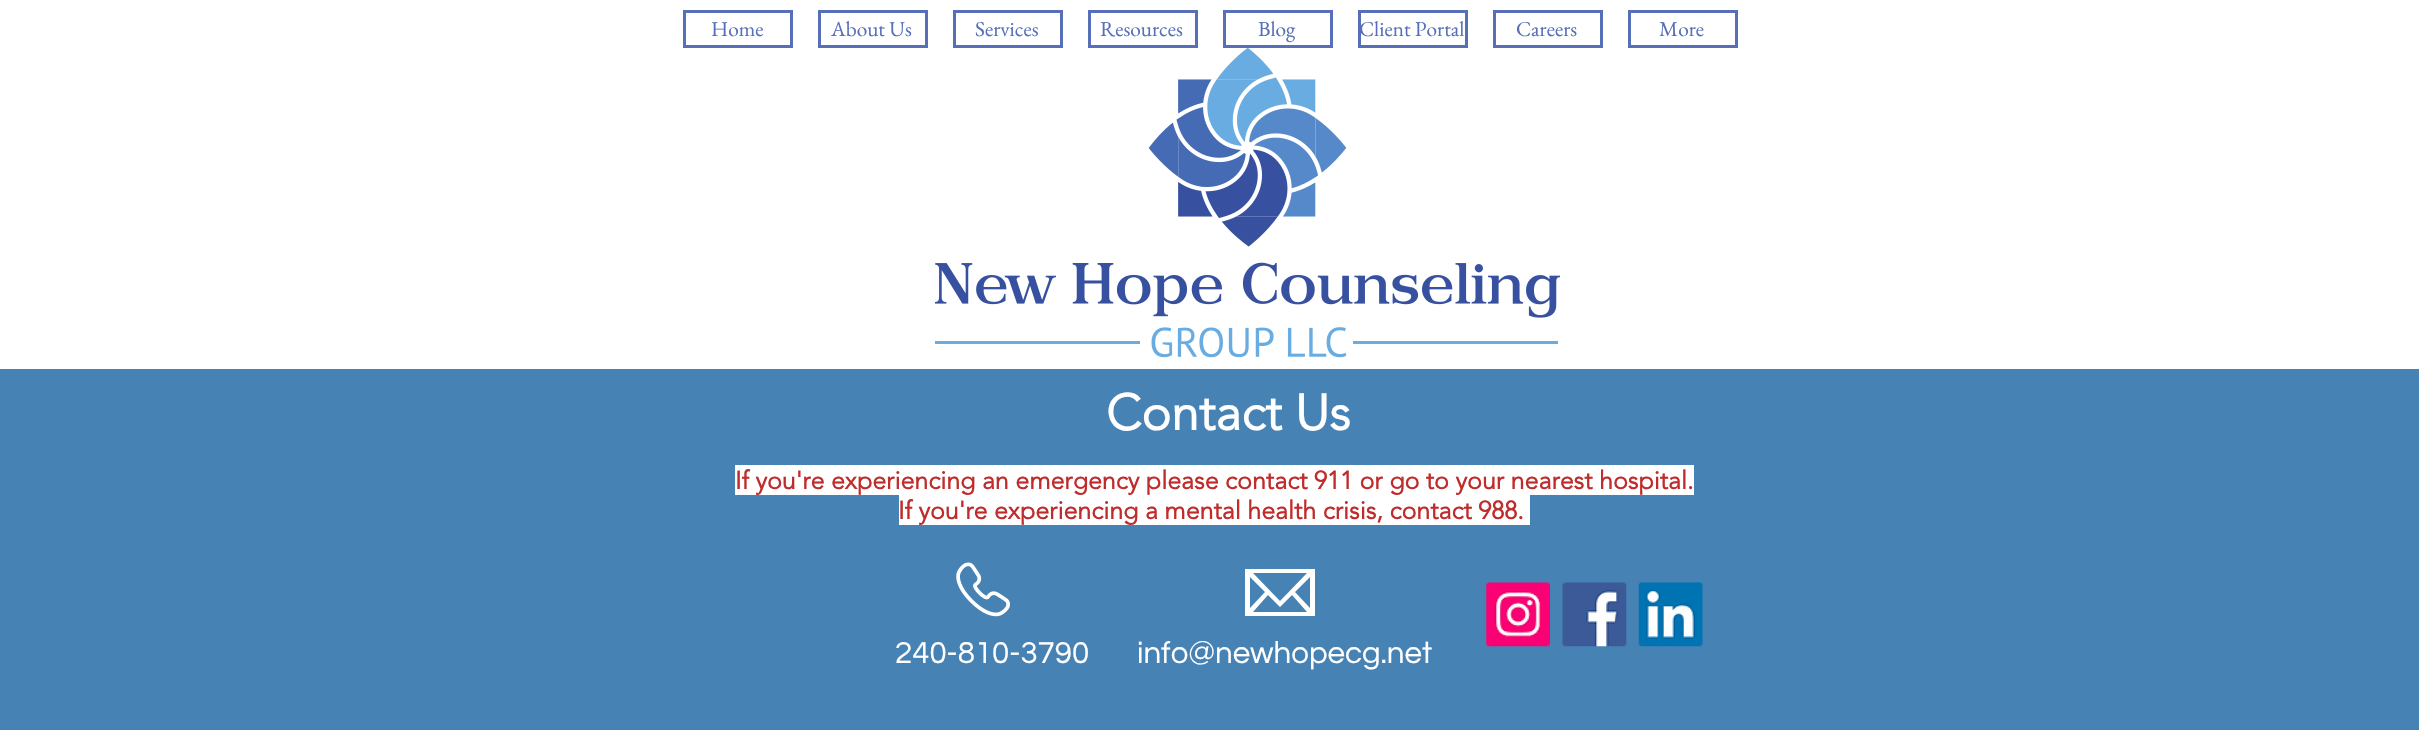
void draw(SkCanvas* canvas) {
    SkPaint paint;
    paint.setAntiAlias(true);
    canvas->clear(0xFF4682B4);
    paint.setColor(0xFFFFFFFF);
    canvas->drawRect(SkRect::MakeXYWH(0, 0, 2419, 369), paint);
    paint.setStyle(SkPaint::kStroke_Style);
    paint.setStrokeWidth(3);
    paint.setColor(0xFF566FB8);
    canvas->drawRect(SkRect::MakeXYWH(684.5f, 11.5f, 107, 35), paint);
    SkFont font1(fontMgr->matchFamilyStyle("EB Garamond", SkFontStyle::Normal()), 21.25f);
    font1.setSubpixel(true);
    paint.setStyle(SkPaint::kFill_Style);
    canvas->drawString("Home", 711, 36, font1, paint);
    paint.setStyle(SkPaint::kStroke_Style);
    canvas->drawRect(SkRect::MakeXYWH(819.5f, 11.5f, 107, 35), paint);
    paint.setStyle(SkPaint::kFill_Style);
    canvas->drawString("About Us", 831, 36, font1, paint);
    paint.setStyle(SkPaint::kStroke_Style);
    canvas->drawRect(SkRect::MakeXYWH(954.5f, 11.5f, 107, 35), paint);
    paint.setStyle(SkPaint::kFill_Style);
    canvas->drawString("Services", 975, 36, font1, paint);
    paint.setStyle(SkPaint::kStroke_Style);
    canvas->drawRect(SkRect::MakeXYWH(1089.5f, 11.5f, 107, 35), paint);
    paint.setStyle(SkPaint::kFill_Style);
    canvas->drawString("Resources", 1100, 36, font1, paint);
    paint.setStyle(SkPaint::kStroke_Style);
    canvas->drawRect(SkRect::MakeXYWH(1224.5f, 11.5f, 107, 35), paint);
    paint.setStyle(SkPaint::kFill_Style);
    canvas->drawString("Blog", 1258, 36, font1, paint);
    paint.setStyle(SkPaint::kStroke_Style);
    canvas->drawRect(SkRect::MakeXYWH(1359.5f, 11.5f, 107, 35), paint);
    paint.setStyle(SkPaint::kFill_Style);
    canvas->drawString("Client Portal", 1359, 36, font1, paint);
    paint.setStyle(SkPaint::kStroke_Style);
    canvas->drawRect(SkRect::MakeXYWH(1494.5f, 11.5f, 107, 35), paint);
    paint.setStyle(SkPaint::kFill_Style);
    canvas->drawString("Careers", 1516, 36, font1, paint);
    paint.setStyle(SkPaint::kStroke_Style);
    canvas->drawRect(SkRect::MakeXYWH(1629.5f, 11.5f, 107, 35), paint);
    paint.setStyle(SkPaint::kFill_Style);
    canvas->drawString("More", 1659, 36, font1, paint);
    canvas->drawImageRect(SkImages::DeferredFromEncodedData(SkData::MakeFromFileName("img1.png")), SkRect::MakeXYWH(935, 47, 625, 311), SkSamplingOptions());
    SkFont font2(fontMgr->matchFamilyStyle("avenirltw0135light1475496", SkFontStyle::Bold()), 50);
    font2.setSubpixel(true);
    paint.setColor(0xFFFFFFFF);
    canvas->drawString("Contact Us", 1106, 430, font2, paint);
    canvas->drawRect(SkRect::MakeXYWH(735, 465, 959, 30), paint);
    SkFont font3(fontMgr->matchFamilyStyle("avenirltw0135light1475496", SkFontStyle::Bold()), 25);
    font3.setSubpixel(true);
    paint.setColor(0xFFC02B2B);
    canvas->drawString("If you're experiencing an emergency please contact 911 or go to your nearest hospital.", 735, 489, font3, paint);
    paint.setColor(0xFFFFFFFF);
    canvas->drawRect(SkRect::MakeXYWH(899, 495, 631, 30), paint);
    paint.setColor(0xFFC02B2B);
    canvas->drawString("If you're experiencing a mental health crisis, contact 988.", 898, 519, font3, paint);
    canvas->drawImageRect(SkImages::DeferredFromEncodedData(SkData::MakeFromFileName("img2.png")), SkRect::MakeXYWH(956, 562, 54, 55), SkSamplingOptions());
    paint.setColor(0xFFFFFFFF);
    canvas->drawPath(SkPathBuilder().moveTo(1245, 569).lineTo(1245, 616).lineTo(1315, 616).lineTo(1315, 569).close().moveTo(1280, 601).lineTo(1253, 573).lineTo(1307, 573).close().moveTo(1265, 592).lineTo(1250, 608).lineTo(1250, 577).close().moveTo(1268, 595).lineTo(1280, 607).lineTo(1292, 595).lineTo(1307, 612).lineTo(1253, 612).close().moveTo(1295, 592).lineTo(1310, 577).lineTo(1310, 608).close().detach(), paint);
    canvas->drawImageRect(SkImages::DeferredFromEncodedData(SkData::MakeFromFileName("img3.png")), SkRect::MakeXYWH(1486, 582, 64, 65), SkSamplingOptions());
    canvas->drawImageRect(SkImages::DeferredFromEncodedData(SkData::MakeFromFileName("img4.png")), SkRect::MakeXYWH(1562, 582, 65, 65), SkSamplingOptions());
    canvas->drawImageRect(SkImages::DeferredFromEncodedData(SkData::MakeFromFileName("img5.png")), SkRect::MakeXYWH(1638, 582, 65, 65), SkSamplingOptions());
    SkFont font4(fontMgr->matchFamilyStyle("Questrial", SkFontStyle::Normal()), 31.25f);
    font4.setSubpixel(true);
    canvas->drawString("240-810-3790", 895, 663, font4, paint);
    canvas->drawString("info@newhopecg.net", 1137, 663, font4, paint);
}
